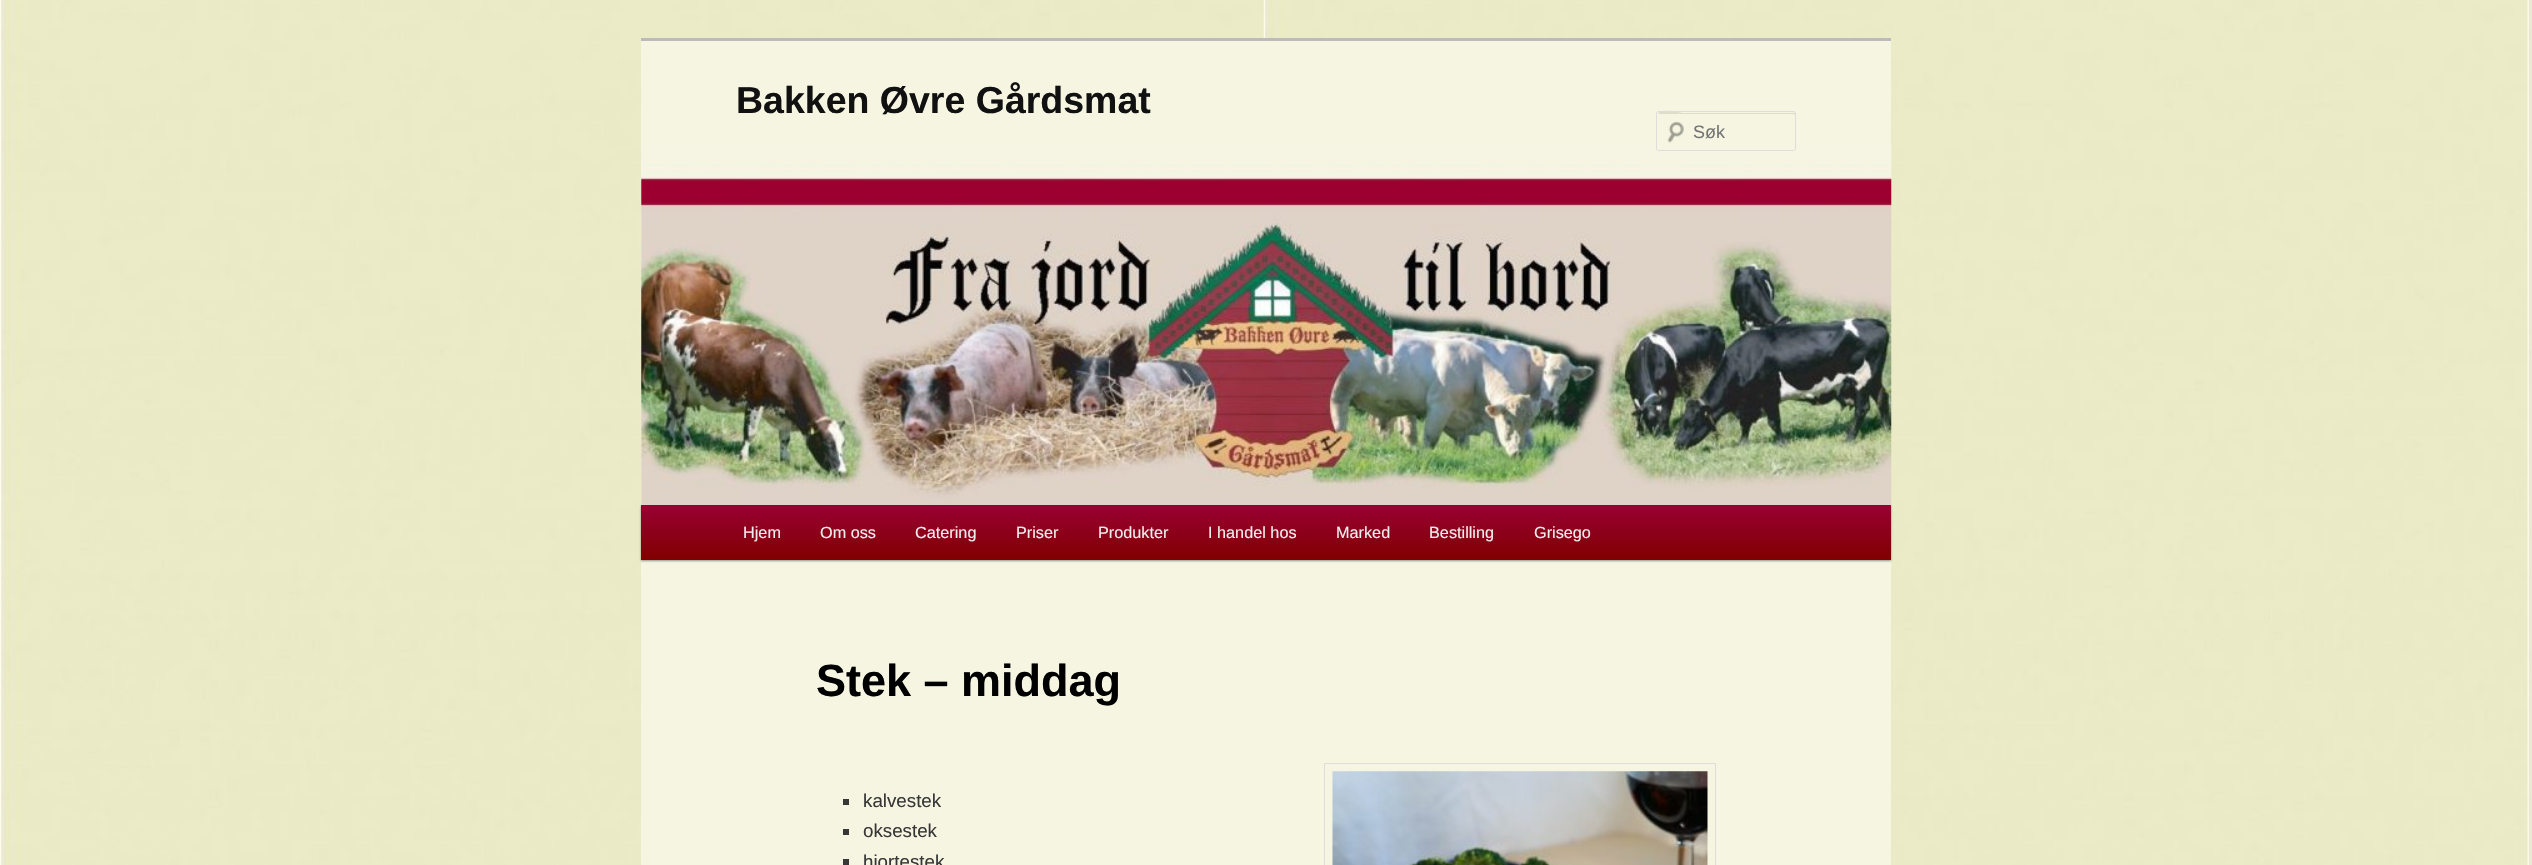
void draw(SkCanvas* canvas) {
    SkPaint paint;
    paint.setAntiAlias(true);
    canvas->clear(0xFFFFFFFF);
    canvas->drawImageRect(SkImages::DeferredFromEncodedData(SkData::MakeFromFileName("img1.png")), SkRect::MakeXYWH(0, 0, 2532, 865), SkSamplingOptions());
    paint.setColor(0xFFF5F5E2);
    canvas->drawRect(SkRect::MakeXYWH(641, 41, 1250, 824), paint);
    paint.setColor(0xFFBBBBBB);
    canvas->drawRect(SkRect::MakeXYWH(641, 38, 1250, 3), paint);
    SkFont font1(fontMgr->matchFamilyStyle("Liberation Sans", SkFontStyle::Bold()), 37.5f);
    font1.setSubpixel(true);
    paint.setColor(0xFF111111);
    canvas->drawString("Bakken Øvre Gårdsmat", 736, 113, font1, paint);
    canvas->drawImageRect(SkImages::DeferredFromEncodedData(SkData::MakeFromFileName("img2.png")), SkRect::MakeXYWH(1667, 121, 17, 22), SkSamplingOptions());
    paint.setColor(0xFFDDDDCB);
    canvas->drawPath(SkPathBuilder().moveTo(1659, 114).lineTo(1794, 114).lineTo(1795, 115).lineTo(1795, 113).lineTo(1682, 113).cubicTo(1681, 113, 1658, 107, 1658, 115).cubicTo(1658, 114, 1658, 114, 1659, 114).close().detach(), paint);
    paint.setColor(0x66000000);
    paint.setMaskFilter(SkMaskFilter::MakeBlur(kNormal_SkBlurStyle, 1));
    canvas->drawRect(SkRect::MakeXYWH(641, 506, 1250, 55), paint);
    paint.setMaskFilter(nullptr);
    canvas->drawImageRect(SkImages::DeferredFromEncodedData(SkData::MakeFromFileName("img3.png")), SkRect::MakeXYWH(641, 145, 1251, 360), SkSamplingOptions());
    paint.setStyle(SkPaint::kStroke_Style);
    paint.setStrokeWidth(1);
    paint.setColor(0xFFDDDDDD);
    canvas->drawRoundRect(SkRect::MakeXYWH(1656.5f, 111.5f, 139, 39), 2, 2, paint);
    SkFont font2(fontMgr->matchFamilyStyle("Liberation Sans", SkFontStyle::Normal()), 18);
    font2.setSubpixel(true);
    paint.setStyle(SkPaint::kFill_Style);
    paint.setColor(0xFF757575);
    canvas->drawString("Søk", 1693, 138, font2, paint);
    {
        const SkColor colors[] = {0xFF990033, 0xFF800000};
        const float stops[] = {0, 1};
        const SkPoint ends[] = {{1266, 505}, {1266, 560}};
        paint.setShader(SkGradientShader::MakeLinear(ends, colors, stops, 2, SkTileMode::kClamp));
        paint.setAlpha(255);
    }
    canvas->drawRect(SkRect::MakeXYWH(641, 505, 1250, 55), paint);
    SkFont font3(fontMgr->matchFamilyStyle("Liberation Sans", SkFontStyle::Normal()), 16.25f);
    font3.setSubpixel(true);
    paint.setShader(nullptr);
    paint.setColor(0xFFEEEEEE);
    canvas->drawString("Hjem", 743, 538, font3, paint);
    canvas->drawString("Om oss", 820, 538, font3, paint);
    canvas->drawString("Catering", 915, 538, font3, paint);
    canvas->drawString("Priser", 1016, 538, font3, paint);
    canvas->drawString("Produkter", 1098, 538, font3, paint);
    canvas->drawString("I handel hos", 1208, 538, font3, paint);
    canvas->drawString("Marked", 1336, 538, font3, paint);
    canvas->drawString("Bestilling", 1429, 538, font3, paint);
    canvas->drawString("Grisego", 1534, 538, font3, paint);
    SkFont font4(fontMgr->matchFamilyStyle("Liberation Sans", SkFontStyle::Bold()), 45);
    font4.setSubpixel(true);
    paint.setColor(0xFF000000);
    canvas->drawString("Stek – middag", 816, 696, font4, paint);
    paint.setColor(0xFF373737);
    canvas->drawRect(SkRect::MakeXYWH(843, 799, 6, 6), paint);
    SkFont font5(fontMgr->matchFamilyStyle("Liberation Sans", SkFontStyle::Normal()), 18.75f);
    font5.setSubpixel(true);
    canvas->drawString("kalvestek", 863, 807, font5, paint);
    canvas->drawRect(SkRect::MakeXYWH(843, 829, 6, 6), paint);
    canvas->drawString("oksestek", 863, 837, font5, paint);
    canvas->drawRect(SkRect::MakeXYWH(843, 859, 6, 6), paint);
    canvas->drawString("hjortestek", 863, 868, font5, paint);
    paint.setStyle(SkPaint::kStroke_Style);
    paint.setColor(0xFFDDDDDD);
    canvas->drawRect(SkRect::MakeXYWH(1324.5f, 763.5f, 391, 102), paint);
    canvas->drawImageRect(SkImages::DeferredFromEncodedData(SkData::MakeFromFileName("img4.png")), SkRect::MakeXYWH(1332, 771, 376, 94), SkSamplingOptions());
}
